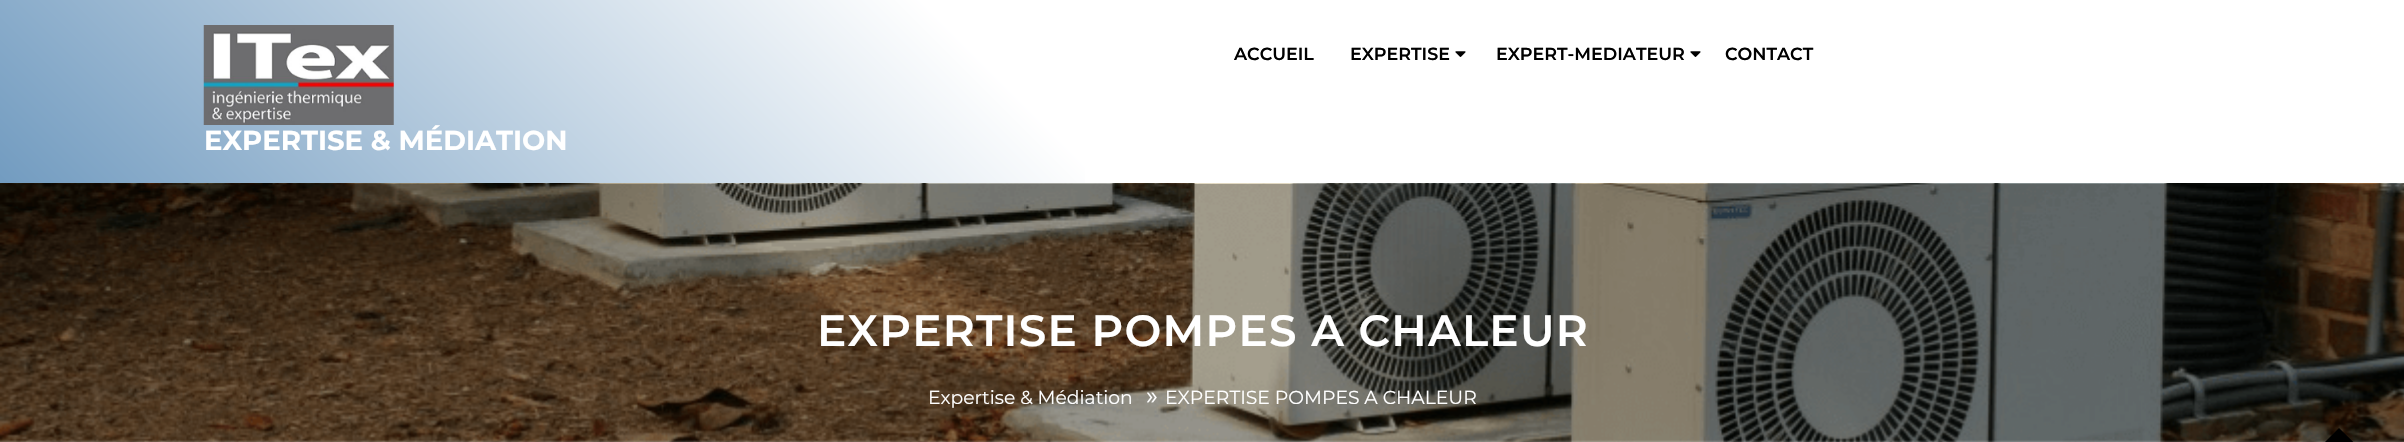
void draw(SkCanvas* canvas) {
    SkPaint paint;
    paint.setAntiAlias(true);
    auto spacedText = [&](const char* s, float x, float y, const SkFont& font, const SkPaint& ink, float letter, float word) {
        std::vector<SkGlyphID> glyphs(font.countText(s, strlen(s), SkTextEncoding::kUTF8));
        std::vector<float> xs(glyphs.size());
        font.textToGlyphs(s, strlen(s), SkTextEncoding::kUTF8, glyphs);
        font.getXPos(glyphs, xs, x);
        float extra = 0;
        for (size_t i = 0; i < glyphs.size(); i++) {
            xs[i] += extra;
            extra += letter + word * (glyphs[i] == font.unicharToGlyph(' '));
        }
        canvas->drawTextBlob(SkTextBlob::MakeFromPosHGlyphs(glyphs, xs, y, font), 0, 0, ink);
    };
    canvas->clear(0xFFFFFFFF);
    SkFont font1(fontMgr->matchFamilyStyle("Montserrat", SkFontStyle(600, SkFontStyle::kNormal_Width, SkFontStyle::kUpright_Slant)), 17.5f);
    font1.setSubpixel(true);
    paint.setColor(0xFF000000);
    canvas->drawString("ACCUEIL", 1234, 60, font1, paint);
    canvas->drawString("EXPERTISE", 1350, 60, font1, paint);
    canvas->drawImageRect(SkImages::DeferredFromEncodedData(SkData::MakeFromFileName("img1.png")), SkRect::MakeXYWH(1455, 51, 11, 6), SkSamplingOptions());
    canvas->drawString("EXPERT-MEDIATEUR", 1496, 60, font1, paint);
    canvas->drawImageRect(SkImages::DeferredFromEncodedData(SkData::MakeFromFileName("img1.png")), SkRect::MakeXYWH(1690, 51, 11, 6), SkSamplingOptions());
    canvas->drawString("CONTACT", 1725, 60, font1, paint);
    {
        const SkColor colors[] = {0xFF709ABF, 0xFFFFFFFF};
        const float stops[] = {0, 0.8f};
        const SkPoint ends[] = {{241, 442}, {943, -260}};
        paint.setShader(SkGradientShader::MakeLinear(ends, colors, stops, 2, SkTileMode::kClamp));
        paint.setAlpha(255);
    }
    canvas->drawRect(SkRect::MakeXYWH(0, 0, 1085, 183), paint);
    canvas->drawImageRect(SkImages::DeferredFromEncodedData(SkData::MakeFromFileName("img2.png")), SkRect::MakeXYWH(203, 25, 191, 100), SkSamplingOptions());
    SkFont font2(fontMgr->matchFamilyStyle("Montserrat", SkFontStyle::Bold()), 27.5f);
    font2.setSubpixel(true);
    paint.setShader(nullptr);
    paint.setColor(0xFFFFFFFF);
    canvas->drawString("EXPERTISE & MÉDIATION", 204, 150, font2, paint);
    canvas->drawImageRect(SkImages::DeferredFromEncodedData(SkData::MakeFromFileName("img3.png")), SkRect::MakeXYWH(0, 183, 2404, 259), SkSamplingOptions());
    SkFont font3(fontMgr->matchFamilyStyle("Montserrat", SkFontStyle(600, SkFontStyle::kNormal_Width, SkFontStyle::kUpright_Slant)), 43.75f);
    font3.setSubpixel(true);
    spacedText("EXPERTISE POMPES A CHALEUR", 817, 346, font3, paint, 1.25f, 0);
    SkFont font4(fontMgr->matchFamilyStyle("Montserrat", SkFontStyle::Normal()), 18.75f);
    font4.setSubpixel(true);
    canvas->drawString("Expertise & Médiation", 928, 404, font4, paint);
    SkFont font5(fontMgr->matchFamilyStyle("Montserrat", SkFontStyle::Normal()), 25);
    font5.setSubpixel(true);
    canvas->drawString("»", 1146, 404, font5, paint);
    canvas->drawString("EXPERTISE POMPES A CHALEUR", 1165, 404, font4, paint);
    paint.setColor(0xFF000000);
    canvas->drawPath(SkPathBuilder().moveTo(2300, 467).lineTo(2339, 428).lineTo(2379, 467).lineTo(2339, 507).close().detach(), paint);
}
